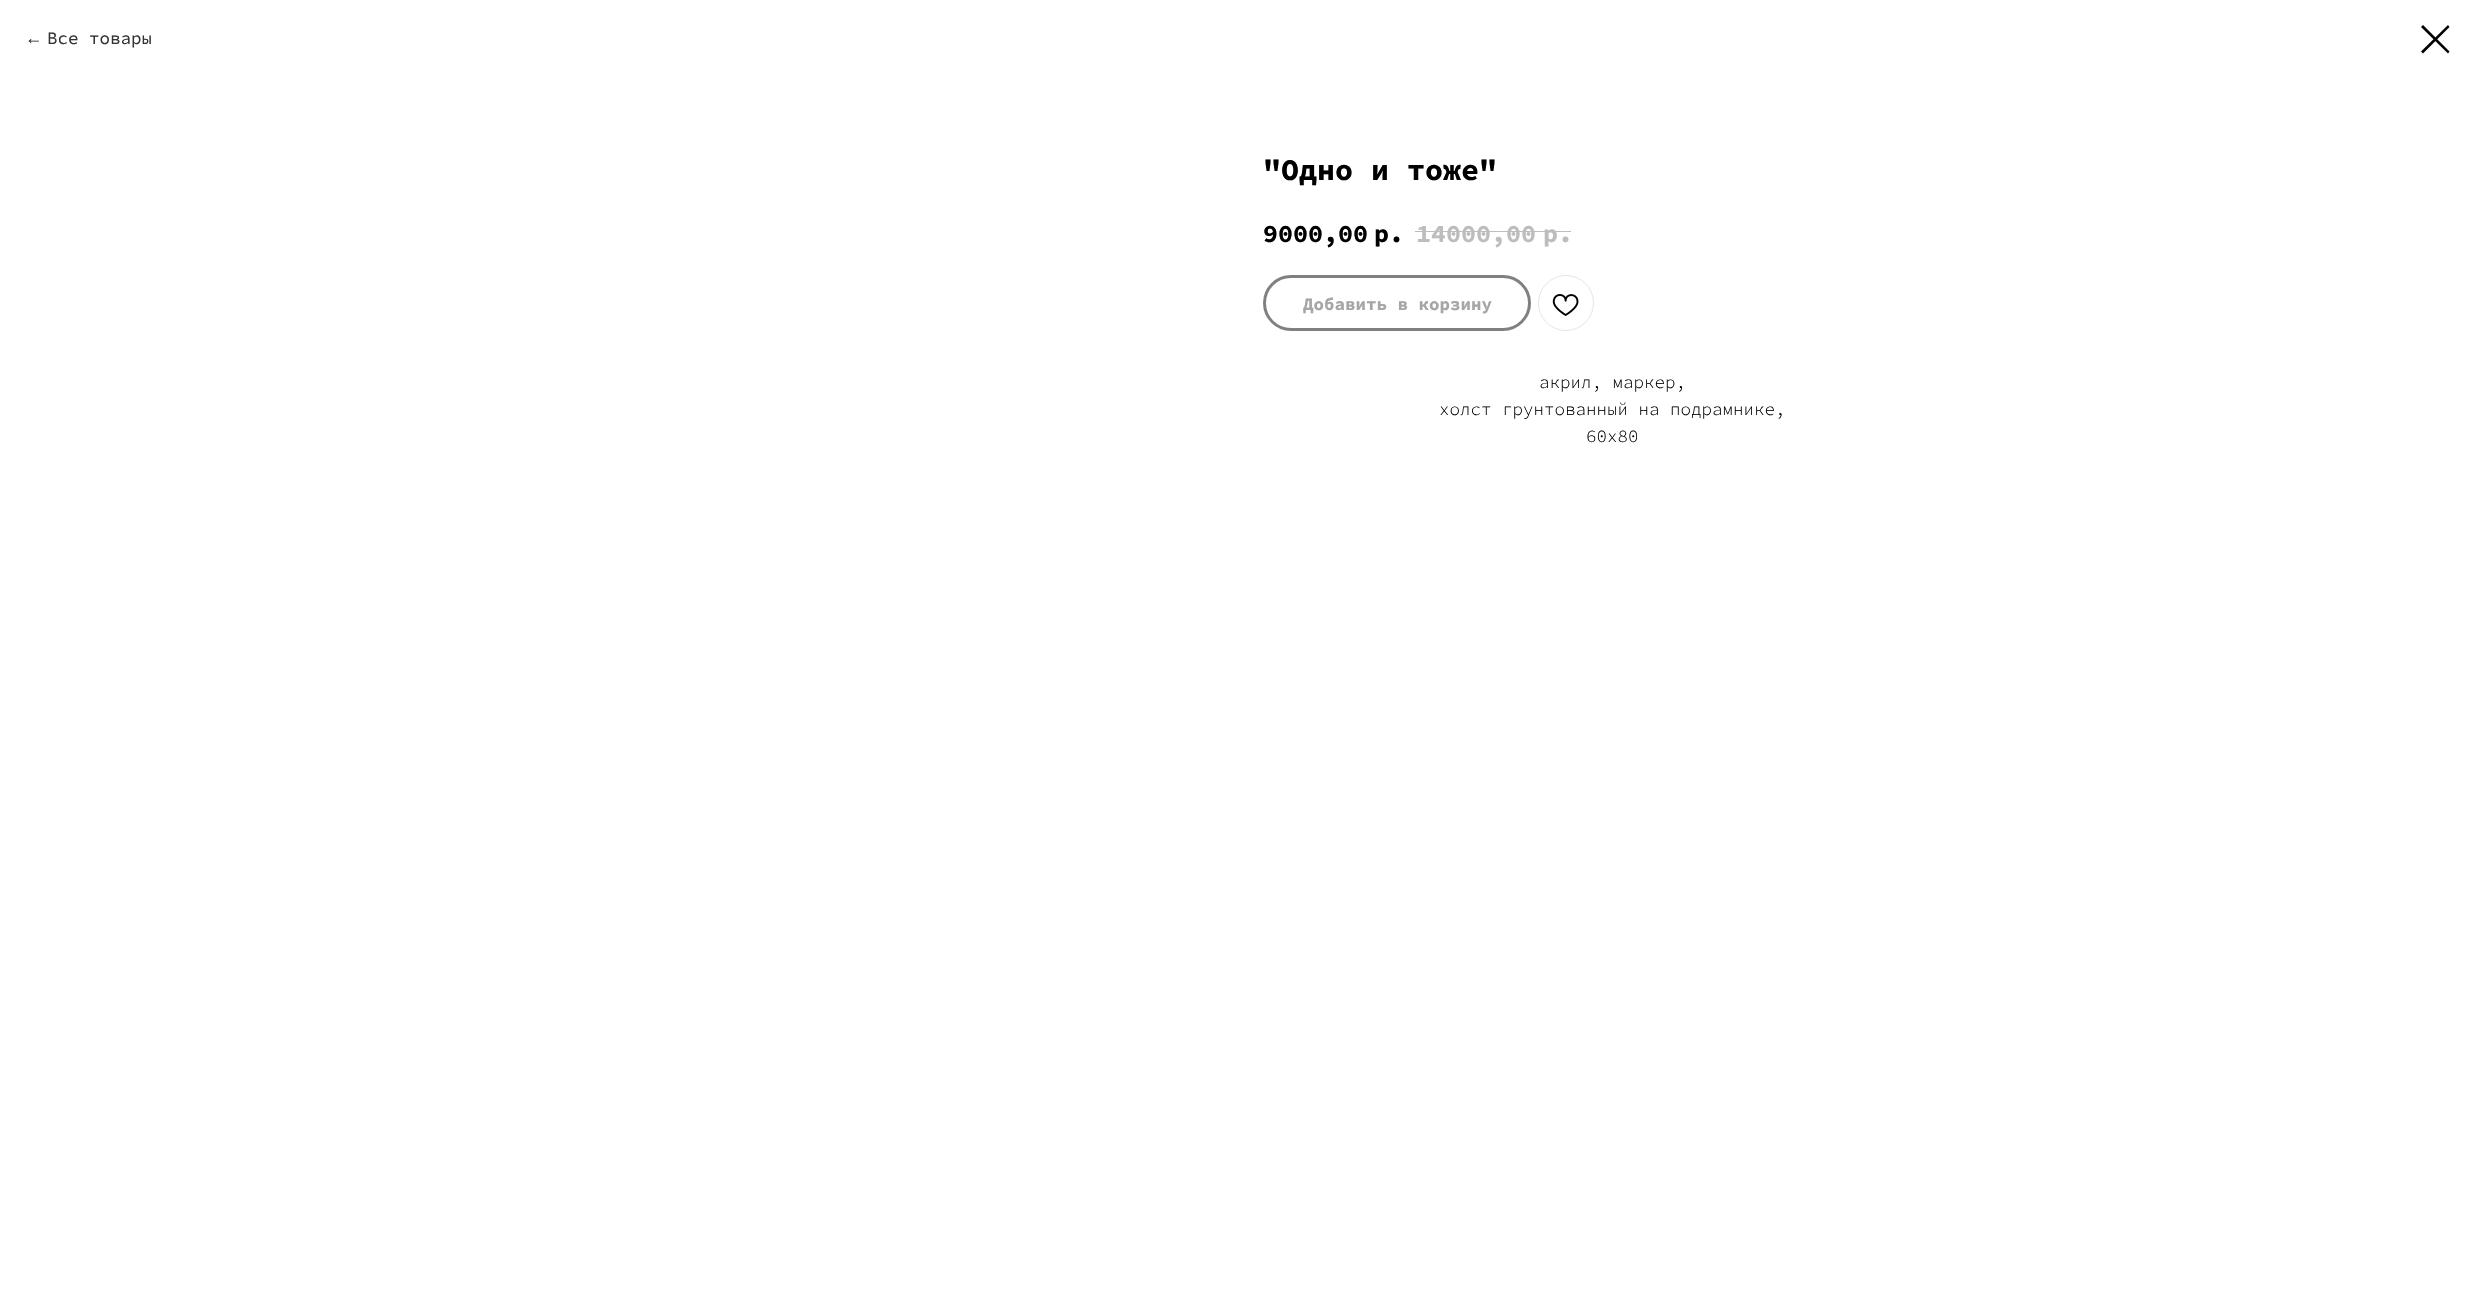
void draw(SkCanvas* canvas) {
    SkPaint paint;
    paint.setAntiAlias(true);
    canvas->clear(0xFFFFFFFF);
    SkFont font1(fontMgr->matchFamilyStyle("Liberation Sans", SkFontStyle::Normal()), 17.5f);
    font1.setSubpixel(true);
    paint.setColor(0xFF333333);
    canvas->drawString("←", 25, 44, font1, paint);
    SkFont font2(fontMgr->matchFamilyStyle("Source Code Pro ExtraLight", SkFontStyle::Normal()), 17.5f);
    font2.setSubpixel(true);
    canvas->drawString("Все товары", 47, 44, font2, paint);
    paint.setColor(0xFF000000);
    canvas->drawPath(SkPathBuilder(SkPathFillType::kEvenOdd).moveTo(2421, 27).lineTo(2423, 25).lineTo(2449.5f, 51.5f).lineTo(2448, 53.5f).close().detach(), paint);
    canvas->drawPath(SkPathBuilder(SkPathFillType::kEvenOdd).moveTo(2448, 25).lineTo(2449.5f, 27).lineTo(2423, 53.5f).lineTo(2421, 51.5f).close().detach(), paint);
    SkFont font3(fontMgr->matchFamilyStyle("Source Code Pro ExtraLight", SkFontStyle::Bold()), 30);
    font3.setSubpixel(true);
    canvas->drawString("\"Одно и тоже\"", 1263, 180, font3, paint);
    SkFont font4(fontMgr->matchFamilyStyle("Source Code Pro ExtraLight", SkFontStyle::Bold()), 25);
    font4.setSubpixel(true);
    canvas->drawString("9000,00", 1263, 242, font4, paint);
    canvas->drawString("р.", 1374, 242, font4, paint);
    paint.setColor(0xFFBDBDBD);
    canvas->drawString("14000,00", 1416, 242, font4, paint);
    canvas->drawString("р.", 1543, 242, font4, paint);
    canvas->drawRect(SkRect::MakeXYWH(1415, 231, 156, 1), paint);
    paint.setStyle(SkPaint::kStroke_Style);
    paint.setStrokeWidth(3);
    paint.setColor(0xFF808080);
    canvas->drawRoundRect(SkRect::MakeXYWH(1264.5f, 276.5f, 265, 53), 26.5f, 26.5f, paint);
    SkFont font5(fontMgr->matchFamilyStyle("Source Code Pro ExtraLight", SkFontStyle::Bold()), 17.5f);
    font5.setSubpixel(true);
    paint.setStyle(SkPaint::kFill_Style);
    paint.setColor(0xFFA6A6A6);
    canvas->drawString("Добавить в корзину", 1303, 310, font5, paint);
    paint.setStyle(SkPaint::kStroke_Style);
    paint.setStrokeWidth(1);
    paint.setColor(0xFFE4E4E4);
    canvas->drawCircle(1566, 303, 27.5f, paint);
    canvas->drawImageRect(SkImages::DeferredFromEncodedData(SkData::MakeFromFileName("img1.png")), SkRect::MakeXYWH(1552, 294, 27, 22), SkSamplingOptions());
    SkFont font6(fontMgr->matchFamilyStyle("Source Code Pro ExtraLight", SkFontStyle(300, SkFontStyle::kNormal_Width, SkFontStyle::kUpright_Slant)), 17.5f);
    font6.setSubpixel(true);
    paint.setStyle(SkPaint::kFill_Style);
    paint.setColor(0xFF000000);
    canvas->drawString("акрил, маркер,", 1539, 388, font6, paint);
    canvas->drawString("холст грунтованный на подрамнике,", 1439, 415, font6, paint);
    canvas->drawString("60х80", 1586, 442, font6, paint);
}
